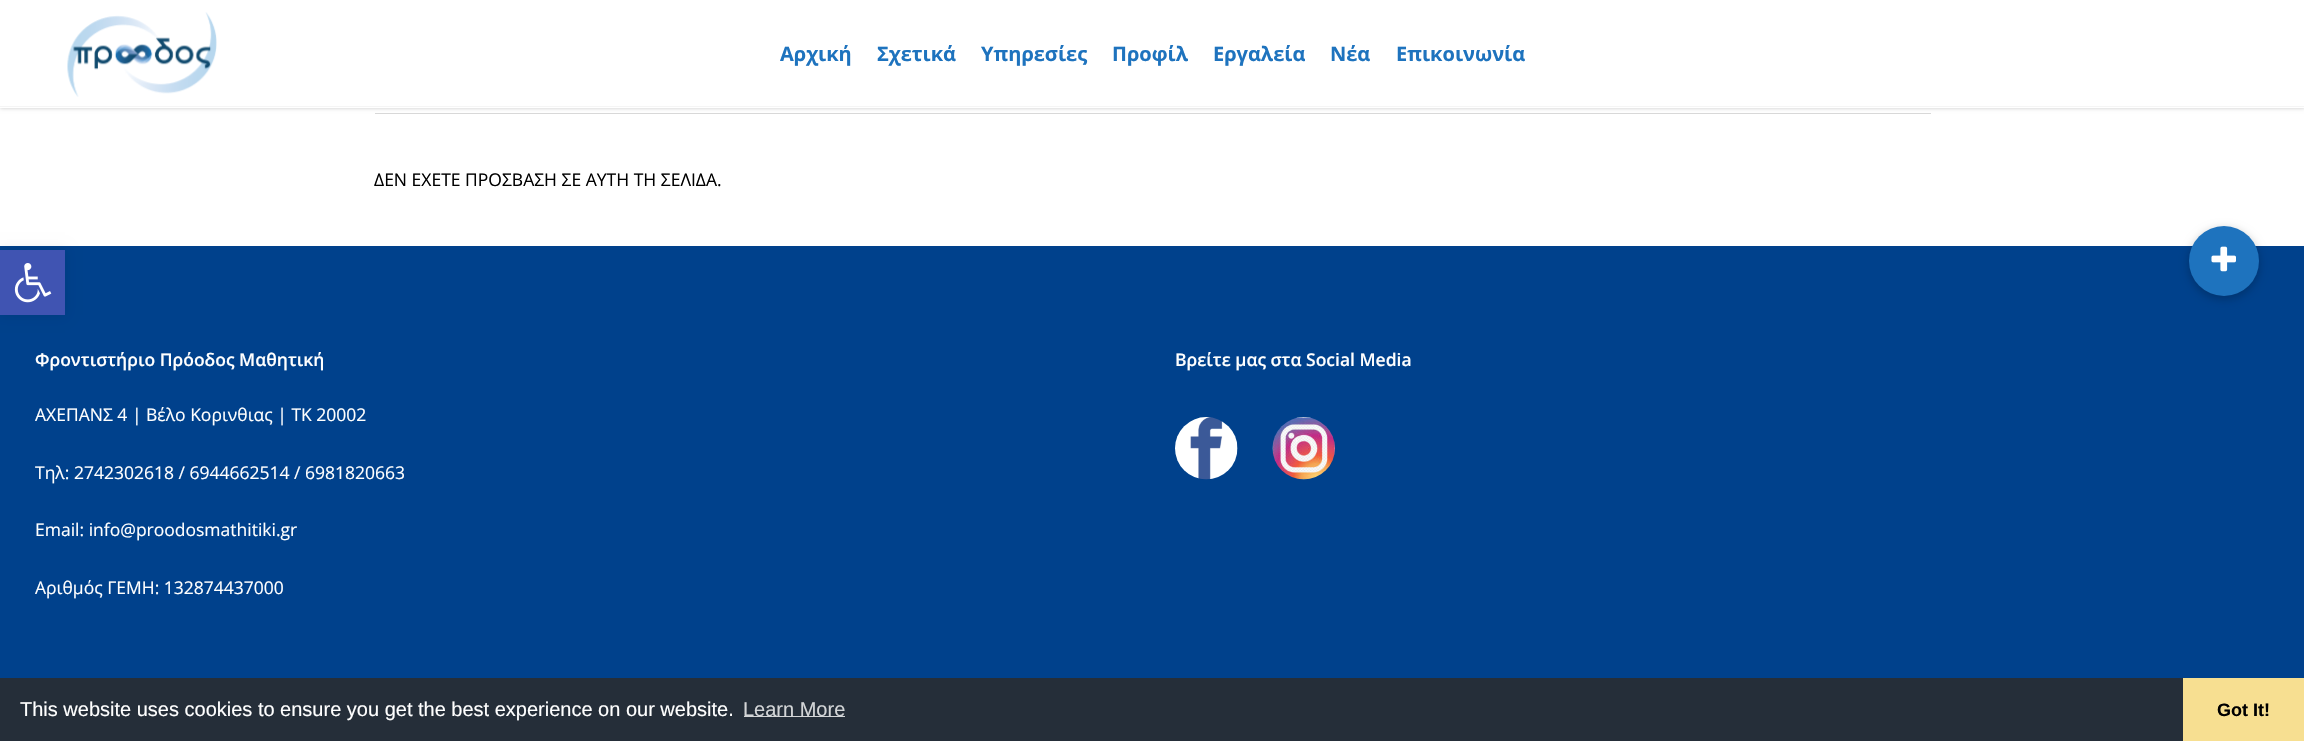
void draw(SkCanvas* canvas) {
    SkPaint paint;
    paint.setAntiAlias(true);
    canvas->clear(0xFFFFFFFF);
    paint.setColor(0xFFD9D9D9);
    canvas->drawRect(SkRect::MakeXYWH(375, 113, 1556, 1), paint);
    paint.setColor(0x38000000);
    paint.setMaskFilter(SkMaskFilter::MakeBlur(kNormal_SkBlurStyle, 2));
    canvas->drawRect(SkRect::MakeXYWH(0, 0, 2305, 108), paint);
    paint.setMaskFilter(nullptr);
    paint.setColor(0xFFFFFFFF);
    canvas->drawRect(SkRect::MakeXYWH(0, 0, 2304, 108), paint);
    paint.setColor(0xFFF5F5F5);
    canvas->drawRect(SkRect::MakeXYWH(0, 106, 2304, 1), paint);
    canvas->drawImageRect(SkImages::DeferredFromEncodedData(SkData::MakeFromFileName("img1.png")), SkRect::MakeXYWH(67, 12, 150, 85), SkSamplingOptions());
    SkFont font1(fontMgr->matchFamilyStyle("Open Sans", SkFontStyle::Bold()), 20);
    font1.setSubpixel(true);
    paint.setColor(0xFF1E73BE);
    canvas->drawString("Αρχική", 780, 61, font1, paint);
    canvas->drawString("Σχετικά", 877, 61, font1, paint);
    canvas->drawString("Υπηρεσίες", 981, 61, font1, paint);
    canvas->drawString("Προφίλ", 1112, 61, font1, paint);
    canvas->drawString("Εργαλεία", 1213, 61, font1, paint);
    canvas->drawString("Νέα", 1330, 61, font1, paint);
    canvas->drawString("Επικοινωνία", 1396, 61, font1, paint);
    SkFont font2(fontMgr->matchFamilyStyle("Open Sans", SkFontStyle::Normal()), 17.5f);
    font2.setSubpixel(true);
    paint.setColor(0xFF000000);
    canvas->drawString("ΔΕΝ ΕΧΕΤΕ ΠΡΟΣΒΑΣΗ ΣΕ ΑΥΤΗ ΤΗ ΣΕΛΙΔΑ.", 374, 186, font2, paint);
    paint.setColor(0xFF00418C);
    canvas->drawRect(SkRect::MakeXYWH(0, 246, 2304, 432), paint);
    SkFont font3(fontMgr->matchFamilyStyle("Open Sans", SkFontStyle(600, SkFontStyle::kNormal_Width, SkFontStyle::kUpright_Slant)), 17.5f);
    font3.setSubpixel(true);
    paint.setColor(0xFFFFFFFF);
    canvas->drawString("Φροντιστήριο Πρόοδος Μαθητική", 35, 366, font3, paint);
    canvas->drawString("ΑΧΕΠΑΝΣ 4 | Βέλο Κορινθιας | ΤΚ 20002", 35, 421, font2, paint);
    canvas->drawString("Τηλ: 2742302618 / 6944662514 / 6981820663", 35, 479, font2, paint);
    canvas->drawString("Email: info@proodosmathitiki.gr", 35, 536, font2, paint);
    canvas->drawString("Αριθμός ΓΕΜΗ: 132874437000", 35, 594, font2, paint);
    canvas->drawString("Βρείτε μας στα Social Media", 1175, 366, font3, paint);
    canvas->drawImageRect(SkImages::DeferredFromEncodedData(SkData::MakeFromFileName("img2.png")), SkRect::MakeXYWH(1175, 417, 63, 63), SkSamplingOptions());
    canvas->drawImageRect(SkImages::DeferredFromEncodedData(SkData::MakeFromFileName("img3.png")), SkRect::MakeXYWH(1272, 417, 63, 63), SkSamplingOptions());
    paint.setColor(0x33000000);
    paint.setMaskFilter(SkMaskFilter::MakeBlur(kNormal_SkBlurStyle, 4));
    canvas->drawRoundRect(SkRect::MakeXYWH(2188, 228, 72, 72), 36, 36, paint);
    paint.setMaskFilter(nullptr);
    paint.setColor(0xFF1E73BE);
    canvas->drawCircle(2224, 261, 35, paint);
    canvas->drawImageRect(SkImages::DeferredFromEncodedData(SkData::MakeFromFileName("img4.png")), SkRect::MakeXYWH(2211, 246, 25, 26), SkSamplingOptions());
    paint.setColor(0x1A000000);
    paint.setMaskFilter(SkMaskFilter::MakeBlur(kNormal_SkBlurStyle, 6));
    canvas->drawRect(SkRect::MakeXYWH(0, 250, 65, 65), paint);
    paint.setMaskFilter(nullptr);
    paint.setColor(0xFF4054B2);
    canvas->drawRect(SkRect::MakeXYWH(0, 250, 65, 65), paint);
    canvas->drawImageRect(SkImages::DeferredFromEncodedData(SkData::MakeFromFileName("img5.png")), SkRect::MakeXYWH(14, 263, 38, 40), SkSamplingOptions());
    paint.setColor(0xFF252E39);
    canvas->drawRect(SkRect::MakeXYWH(0, 678, 2183, 63), paint);
    SkFont font4(fontMgr->matchFamilyStyle("Liberation Sans", SkFontStyle::Normal()), 20);
    font4.setSubpixel(true);
    paint.setColor(0xFFFFFFFF);
    canvas->drawString("This website uses cookies to ensure you get the best experience on our website.", 20, 716, font4, paint);
    paint.setColor(0xFFD3D5D7);
    canvas->drawRect(SkRect::MakeXYWH(744, 716, 101, 1), paint);
    canvas->drawString("Learn More", 743, 716, font4, paint);
    paint.setColor(0xFFF7DF91);
    canvas->drawRect(SkRect::MakeXYWH(2183, 678, 121, 63), paint);
    SkFont font5(fontMgr->matchFamilyStyle("Liberation Sans", SkFontStyle::Bold()), 18);
    font5.setSubpixel(true);
    paint.setColor(0xFF000000);
    canvas->drawString("Got It!", 2217, 716, font5, paint);
}
